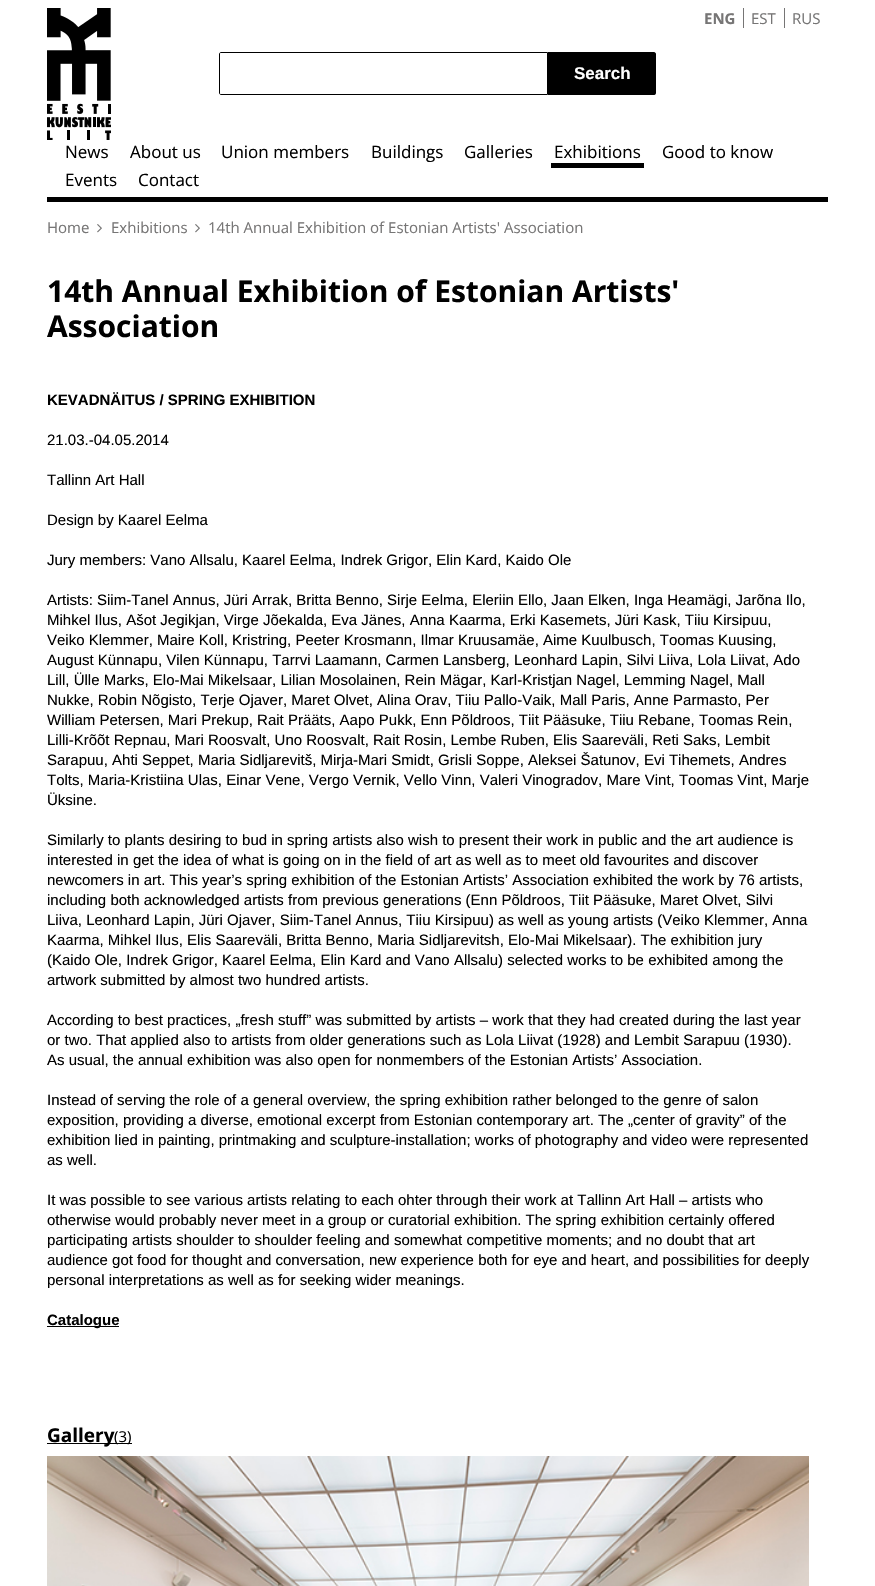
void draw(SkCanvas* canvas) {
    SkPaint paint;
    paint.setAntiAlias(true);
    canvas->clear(0xFFFFFFFF);
    canvas->drawImageRect(SkImages::DeferredFromEncodedData(SkData::MakeFromFileName("img1.png")), SkRect::MakeXYWH(47, 8, 64, 132), SkSamplingOptions());
    paint.setColor(0xFF767575);
    canvas->drawRect(SkRect::MakeXYWH(743, 8, 1, 20), paint);
    SkFont font1(fontMgr->matchFamilyStyle("Open Sans", SkFontStyle::Bold()), 15);
    font1.setSubpixel(true);
    canvas->drawString("ENG", 704, 24, font1, paint);
    canvas->drawRect(SkRect::MakeXYWH(784, 8, 1, 20), paint);
    SkFont font2(fontMgr->matchFamilyStyle("Open Sans", SkFontStyle::Normal()), 15);
    font2.setSubpixel(true);
    canvas->drawString("EST", 751, 24, font2, paint);
    canvas->drawString("RUS", 792, 24, font2, paint);
    paint.setStyle(SkPaint::kStroke_Style);
    paint.setStrokeWidth(1);
    paint.setColor(0xFF000000);
    canvas->drawPath(SkPathBuilder().moveTo(221, 52.5f).lineTo(547.5f, 52.5f).lineTo(547.5f, 94.5f).lineTo(221, 94.5f).cubicTo(220, 94.5f, 219.5f, 94, 219.5f, 93).lineTo(219.5f, 54).cubicTo(219.5f, 53, 220, 52.5f, 221, 52.5f).close().detach(), paint);
    paint.setStyle(SkPaint::kFill_Style);
    canvas->drawPath(SkPathBuilder().moveTo(548, 52).lineTo(654, 52).cubicTo(655, 52, 656, 53, 656, 54).lineTo(656, 93).cubicTo(656, 94, 655, 95, 654, 95).lineTo(548, 95).close().detach(), paint);
    canvas->drawPath(SkPathBuilder().moveTo(655, 95).lineTo(548, 95).lineTo(550, 94).lineTo(654, 94).close().detach(), paint);
    SkFont font3(fontMgr->matchFamilyStyle("Liberation Sans", SkFontStyle::Bold()), 17);
    font3.setSubpixel(true);
    paint.setColor(0xFFFFFFFF);
    canvas->drawString("Search", 574, 79, font3, paint);
    paint.setColor(0xFF000000);
    canvas->drawRect(SkRect::MakeXYWH(47, 197, 781, 5), paint);
    SkFont font4(fontMgr->matchFamilyStyle("Open Sans", SkFontStyle::Normal()), 17);
    font4.setSubpixel(true);
    canvas->drawString("News", 65, 158, font4, paint);
    canvas->drawString("About us", 130, 158, font4, paint);
    canvas->drawString("Union members", 221, 158, font4, paint);
    canvas->drawString("Buildings", 371, 158, font4, paint);
    canvas->drawString("Galleries", 464, 158, font4, paint);
    canvas->drawRect(SkRect::MakeXYWH(551, 163, 93, 5), paint);
    canvas->drawString("Exhibitions", 554, 158, font4, paint);
    canvas->drawString("Good to know", 662, 158, font4, paint);
    canvas->drawString("Events", 65, 186, font4, paint);
    canvas->drawString("Contact", 138, 186, font4, paint);
    paint.setColor(0xFF767575);
    canvas->drawString("Home", 47, 233, font2, paint);
    canvas->drawImageRect(SkImages::DeferredFromEncodedData(SkData::MakeFromFileName("img2.png")), SkRect::MakeXYWH(97, 224, 5, 9), SkSamplingOptions());
    canvas->drawString("Exhibitions", 111, 233, font2, paint);
    canvas->drawImageRect(SkImages::DeferredFromEncodedData(SkData::MakeFromFileName("img2.png")), SkRect::MakeXYWH(195, 224, 5, 9), SkSamplingOptions());
    canvas->drawString("14th Annual Exhibition of Estonian Artists' Association", 208, 233, font2, paint);
    SkFont font5(fontMgr->matchFamilyStyle("Open Sans", SkFontStyle::Bold()), 30);
    font5.setSubpixel(true);
    paint.setColor(0xFF000000);
    canvas->drawString("14th Annual Exhibition of Estonian Artists'", 47, 302, font5, paint);
    canvas->drawString("Association", 47, 337, font5, paint);
    SkFont font6(fontMgr->matchFamilyStyle("Liberation Sans", SkFontStyle::Bold()), 15);
    font6.setSubpixel(true);
    canvas->drawString("KEVADNÄITUS / SPRING EXHIBITION", 47, 405, font6, paint);
    SkFont font7(fontMgr->matchFamilyStyle("Liberation Sans", SkFontStyle::Normal()), 15);
    font7.setSubpixel(true);
    canvas->drawString("21.03.-04.05.2014", 47, 445, font7, paint);
    canvas->drawString("Tallinn Art Hall", 47, 485, font7, paint);
    canvas->drawString("Design by Kaarel Eelma", 47, 525, font7, paint);
    canvas->drawString("Jury members: Vano Allsalu, Kaarel Eelma, Indrek Grigor, Elin Kard, Kaido Ole", 47, 565, font7, paint);
    canvas->drawString("Artists: Siim-Tanel Annus, Jüri Arrak, Britta Benno, Sirje Eelma, Eleriin Ello, Jaan Elken, Inga Heamägi, Jarõna Ilo,", 47, 605, font7, paint);
    canvas->drawString("Mihkel Ilus, Ašot Jegikjan, Virge Jõekalda, Eva Jänes, Anna Kaarma, Erki Kasemets, Jüri Kask, Tiiu Kirsipuu,", 47, 625, font7, paint);
    canvas->drawString("Veiko Klemmer, Maire Koll, Kristring, Peeter Krosmann, Ilmar Kruusamäe, Aime Kuulbusch, Toomas Kuusing,", 47, 645, font7, paint);
    canvas->drawString("August Künnapu, Vilen Künnapu, Tarrvi Laamann, Carmen Lansberg, Leonhard Lapin, Silvi Liiva, Lola Liivat, Ado", 47, 665, font7, paint);
    canvas->drawString("Lill, Ülle Marks, Elo-Mai Mikelsaar, Lilian Mosolainen, Rein Mägar, Karl-Kristjan Nagel, Lemming Nagel, Mall", 47, 685, font7, paint);
    canvas->drawString("Nukke, Robin Nõgisto, Terje Ojaver, Maret Olvet, Alina Orav, Tiiu Pallo-Vaik, Mall Paris, Anne Parmasto, Per", 47, 705, font7, paint);
    canvas->drawString("William Petersen, Mari Prekup, Rait Prääts, Aapo Pukk, Enn Põldroos, Tiit Pääsuke, Tiiu Rebane, Toomas Rein,", 47, 725, font7, paint);
    canvas->drawString("Lilli-Krõõt Repnau, Mari Roosvalt, Uno Roosvalt, Rait Rosin, Lembe Ruben, Elis Saareväli, Reti Saks, Lembit", 47, 745, font7, paint);
    canvas->drawString("Sarapuu, Ahti Seppet, Maria Sidljarevitš, Mirja-Mari Smidt, Grisli Soppe, Aleksei Šatunov, Evi Tihemets, Andres", 47, 765, font7, paint);
    canvas->drawString("Tolts, Maria-Kristiina Ulas, Einar Vene, Vergo Vernik, Vello Vinn, Valeri Vinogradov, Mare Vint, Toomas Vint, Marje", 47, 785, font7, paint);
    canvas->drawString("Üksine.", 47, 805, font7, paint);
    canvas->drawString("Similarly to plants desiring to bud in spring artists also wish to present their work in public and the art audience is", 47, 845, font7, paint);
    canvas->drawString("interested in get the idea of what is going on in the field of art as well as to meet old favourites and discover", 47, 865, font7, paint);
    canvas->drawString("newcomers in art. This year’s spring exhibition of the Estonian Artists’ Association exhibited the work by 76 artists,", 47, 885, font7, paint);
    canvas->drawString("including both acknowledged artists from previous generations (Enn Põldroos, Tiit Pääsuke, Maret Olvet, Silvi", 47, 905, font7, paint);
    canvas->drawString("Liiva, Leonhard Lapin, Jüri Ojaver, Siim-Tanel Annus, Tiiu Kirsipuu) as well as young artists (Veiko Klemmer, Anna", 47, 925, font7, paint);
    canvas->drawString("Kaarma, Mihkel Ilus, Elis Saareväli, Britta Benno, Maria Sidljarevitsh, Elo-Mai Mikelsaar). The exhibition jury", 47, 945, font7, paint);
    canvas->drawString("(Kaido Ole, Indrek Grigor, Kaarel Eelma, Elin Kard and Vano Allsalu) selected works to be exhibited among the", 47, 965, font7, paint);
    canvas->drawString("artwork submitted by almost two hundred artists.", 47, 985, font7, paint);
    canvas->drawString("According to best practices, „fresh stuff” was submitted by artists – work that they had created during the last year", 47, 1025, font7, paint);
    canvas->drawString("or two. That applied also to artists from older generations such as Lola Liivat (1928) and Lembit Sarapuu (1930).", 47, 1045, font7, paint);
    canvas->drawString("As usual, the annual exhibition was also open for nonmembers of the Estonian Artists’ Association.", 47, 1065, font7, paint);
    canvas->drawString("Instead of serving the role of a general overview, the spring exhibition rather belonged to the genre of salon", 47, 1105, font7, paint);
    canvas->drawString("exposition, providing a diverse, emotional excerpt from Estonian contemporary art. The „center of gravity” of the", 47, 1125, font7, paint);
    canvas->drawString("exhibition lied in painting, printmaking and sculpture-installation; works of photography and video were represented", 47, 1145, font7, paint);
    canvas->drawString("as well.", 47, 1165, font7, paint);
    canvas->drawString("It was possible to see various artists relating to each ohter through their work at Tallinn Art Hall – artists who", 47, 1205, font7, paint);
    canvas->drawString("otherwise would probably never meet in a group or curatorial exhibition. The spring exhibition certainly offered", 47, 1225, font7, paint);
    canvas->drawString("participating artists shoulder to shoulder feeling and somewhat competitive moments; and no doubt that art", 47, 1245, font7, paint);
    canvas->drawString("audience got food for thought and conversation, new experience both for eye and heart, and possibilities for deeply", 47, 1265, font7, paint);
    canvas->drawString("personal interpretations as well as for seeking wider meanings.", 47, 1285, font7, paint);
    canvas->drawRect(SkRect::MakeXYWH(47, 1326, 72, 1), paint);
    canvas->drawString("Catalogue", 47, 1325, font6, paint);
    canvas->drawRect(SkRect::MakeXYWH(47, 1443, 67, 1), paint);
    SkFont font8(fontMgr->matchFamilyStyle("Open Sans", SkFontStyle::Bold()), 19);
    font8.setSubpixel(true);
    canvas->drawString("Gallery", 47, 1442, font8, paint);
    canvas->drawRect(SkRect::MakeXYWH(114, 1443, 18, 1), paint);
    canvas->drawString("(3)", 114, 1442, font2, paint);
    canvas->drawImageRect(SkImages::DeferredFromEncodedData(SkData::MakeFromFileName("img3.png")), SkRect::MakeXYWH(47, 1456, 762, 130), SkSamplingOptions());
}
